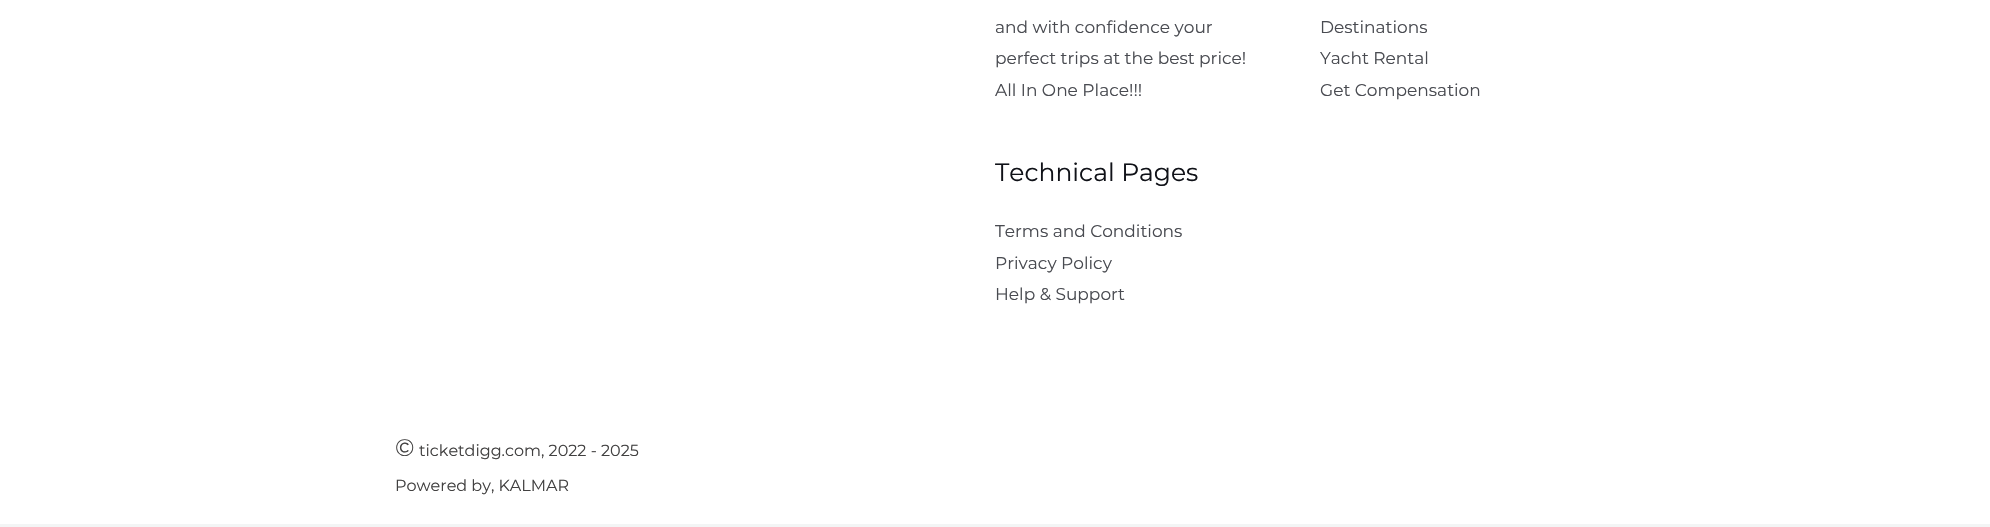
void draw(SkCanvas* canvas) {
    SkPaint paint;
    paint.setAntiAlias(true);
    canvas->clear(0xFFF3F5F5);
    paint.setColor(0xFFFFFFFF);
    canvas->drawRect(SkRect::MakeXYWH(0, 0, 1990, 524), paint);
    SkFont font1(fontMgr->matchFamilyStyle("Montserrat", SkFontStyle::Normal()), 17);
    font1.setSubpixel(true);
    paint.setColor(0xFF494B51);
    canvas->drawString("and with confidence your", 995, 33, font1, paint);
    canvas->drawString("perfect trips at the best price!", 995, 64, font1, paint);
    canvas->drawString("All In One Place!!!", 995, 96, font1, paint);
    SkFont font2(fontMgr->matchFamilyStyle("Montserrat", SkFontStyle::Normal()), 25);
    font2.setSubpixel(true);
    paint.setColor(0xFF101218);
    canvas->drawString("Technical Pages", 995, 181, font2, paint);
    paint.setColor(0xFF494B51);
    canvas->drawString("Terms and Conditions", 995, 237, font1, paint);
    canvas->drawString("Privacy Policy", 995, 269, font1, paint);
    canvas->drawString("Help & Support", 995, 300, font1, paint);
    canvas->drawString("Destinations", 1320, 33, font1, paint);
    canvas->drawString("Yacht Rental", 1320, 64, font1, paint);
    canvas->drawString("Get Compensation", 1320, 96, font1, paint);
    SkFont font3(fontMgr->matchFamilyStyle("Montserrat", SkFontStyle::Normal()), 24);
    font3.setSubpixel(true);
    paint.setColor(0xFF424141);
    canvas->drawString("©", 395, 456, font3, paint);
    SkFont font4(fontMgr->matchFamilyStyle("Montserrat", SkFontStyle::Normal()), 16);
    font4.setSubpixel(true);
    canvas->drawString("ticketdigg.com, 2022 - 2025", 419, 456, font4, paint);
    canvas->drawString("Powered by, KALMAR", 395, 491, font4, paint);
}
